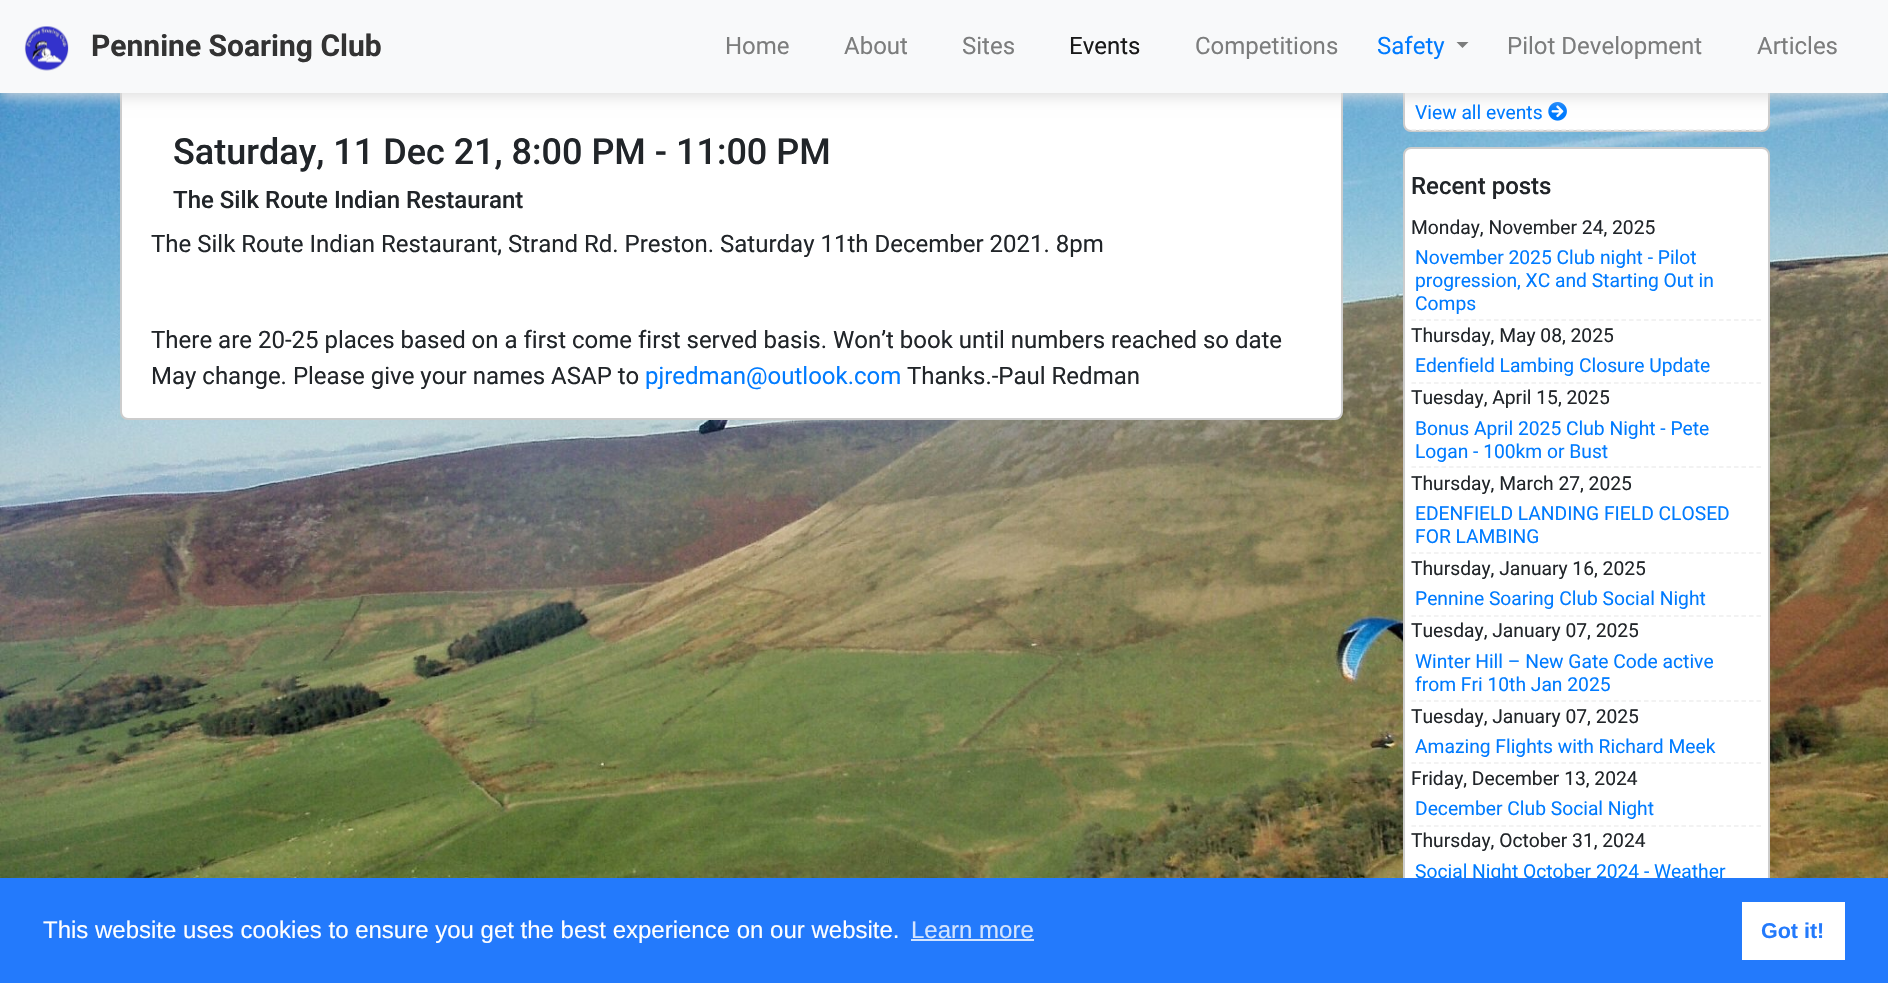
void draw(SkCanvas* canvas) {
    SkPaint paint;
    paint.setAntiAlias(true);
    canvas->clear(0xFFFFFFFF);
    canvas->drawImageRect(SkImages::DeferredFromEncodedData(SkData::MakeFromFileName("img2.png")), SkRect::MakeXYWH(0, 93, 1888, 785), SkSamplingOptions());
    paint.setColor(0xFFFFFFFF);
    canvas->drawRoundRect(SkRect::MakeXYWH(121, 31, 1221, 388), 7, 7, paint);
    paint.setStyle(SkPaint::kStroke_Style);
    paint.setStrokeWidth(2);
    paint.setColor(0xFFCCCCCC);
    canvas->drawRoundRect(SkRect::MakeXYWH(121, 31, 1221, 388), 7, 7, paint);
    paint.setStyle(SkPaint::kFill_Style);
    paint.setColor(0xFFFFFFFF);
    canvas->drawRoundRect(SkRect::MakeXYWH(1404, 31, 365, 100), 7, 7, paint);
    paint.setStyle(SkPaint::kStroke_Style);
    paint.setColor(0xFFCCCCCC);
    canvas->drawRoundRect(SkRect::MakeXYWH(1404, 31, 365, 100), 7, 7, paint);
    canvas->drawImageRect(SkImages::DeferredFromEncodedData(SkData::MakeFromFileName("img3.png")), SkRect::MakeXYWH(1548, 102, 19, 19), SkSamplingOptions());
    paint.setStyle(SkPaint::kFill_Style);
    paint.setColor(0xFFDDDDDD);
    paint.setMaskFilter(SkMaskFilter::MakeBlur(kNormal_SkBlurStyle, 7.5f));
    canvas->drawRect(SkRect::MakeXYWH(0, 3, 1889, 93), paint);
    paint.setMaskFilter(nullptr);
    paint.setColor(0xFFF8F9FA);
    canvas->drawRect(SkRect::MakeXYWH(0, 0, 1888, 93), paint);
    canvas->drawImageRect(SkImages::DeferredFromEncodedData(SkData::MakeFromFileName("img1.png")), SkRect::MakeXYWH(24, 26, 45, 45), SkSamplingOptions());
    SkFont font1(fontMgr->matchFamilyStyle("Roboto", SkFontStyle::Bold()), 30);
    font1.setSubpixel(true);
    paint.setColor(0xFF333333);
    canvas->drawString("Pennine Soaring Club", 91, 56, font1, paint);
    SkFont font2(fontMgr->matchFamilyStyle("Roboto", SkFontStyle::Normal()), 24);
    font2.setSubpixel(true);
    paint.setColor(0xFF7C7D7D);
    canvas->drawString("Home", 725, 54, font2, paint);
    canvas->drawString("About", 844, 54, font2, paint);
    canvas->drawString("Sites", 962, 54, font2, paint);
    paint.setColor(0xFF191919);
    canvas->drawString("Events", 1069, 54, font2, paint);
    paint.setColor(0xFF7C7D7D);
    canvas->drawString("Competitions", 1195, 54, font2, paint);
    paint.setColor(0xFF007BFF);
    canvas->drawString("Safety", 1377, 54, font2, paint);
    paint.setColor(0xFF7C7D7D);
    canvas->drawPath(SkPathBuilder().moveTo(1456.5f, 42).lineTo(1468.5f, 42).lineTo(1462.5f, 48).close().detach(), paint);
    canvas->drawString("Pilot Development", 1507, 54, font2, paint);
    canvas->drawString("Articles", 1757, 54, font2, paint);
    SkFont font3(fontMgr->matchFamilyStyle("Roboto", SkFontStyle(500, SkFontStyle::kNormal_Width, SkFontStyle::kUpright_Slant)), 36);
    font3.setSubpixel(true);
    paint.setColor(0xFF212529);
    canvas->drawString("Saturday, 11 Dec 21, 8:00 PM - 11:00 PM", 173, 164, font3, paint);
    SkFont font4(fontMgr->matchFamilyStyle("Roboto", SkFontStyle(500, SkFontStyle::kNormal_Width, SkFontStyle::kUpright_Slant)), 24);
    font4.setSubpixel(true);
    canvas->drawString("The Silk Route Indian Restaurant", 173, 208, font4, paint);
    canvas->drawString("The Silk Route Indian Restaurant, Strand Rd. Preston. Saturday 11th December 2021. 8pm", 151, 252, font2, paint);
    canvas->drawString("There are 20-25 places based on a first come first served basis. Won’t book until numbers reached so date", 151, 348, font2, paint);
    canvas->drawString("May change. Please give your names ASAP to", 151, 384, font2, paint);
    paint.setColor(0xFF007BFF);
    canvas->drawString("pjredman@outlook.com", 645, 384, font2, paint);
    paint.setColor(0xFF212529);
    canvas->drawString("Thanks.-Paul Redman", 907, 384, font2, paint);
    paint.setStyle(SkPaint::kStroke_Style);
    paint.setStrokeWidth(1.5f);
    paint.setColor(0xFFEEEEEE);
    paint.setPathEffect(SkDashPathEffect::Make({{4.5f, 3}}, 0));
    canvas->drawPath(SkPathBuilder().moveTo(1411.5f, 130).lineTo(1761, 130).detach(), paint);
    paint.setPathEffect(nullptr);
    SkFont font5(fontMgr->matchFamilyStyle("Roboto", SkFontStyle::Normal()), 19.25f);
    font5.setSubpixel(true);
    paint.setStyle(SkPaint::kFill_Style);
    paint.setColor(0xFF007BFF);
    canvas->drawString("View all events", 1415, 119, font5, paint);
    paint.setColor(0xFFFFFFFF);
    canvas->drawRoundRect(SkRect::MakeXYWH(1404, 148, 365, 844), 7, 7, paint);
    paint.setStyle(SkPaint::kStroke_Style);
    paint.setStrokeWidth(2);
    paint.setColor(0xFFCCCCCC);
    canvas->drawRoundRect(SkRect::MakeXYWH(1404, 148, 365, 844), 7, 7, paint);
    paint.setStyle(SkPaint::kFill_Style);
    paint.setColor(0xFF212529);
    canvas->drawString("Recent posts", 1411, 194, font4, paint);
    paint.setStyle(SkPaint::kStroke_Style);
    paint.setStrokeWidth(1.5f);
    paint.setColor(0xFFEEEEEE);
    paint.setPathEffect(SkDashPathEffect::Make({{4.5f, 3}}, 0));
    canvas->drawPath(SkPathBuilder().moveTo(1411.5f, 320).lineTo(1761, 320).detach(), paint);
    paint.setPathEffect(nullptr);
    paint.setStyle(SkPaint::kFill_Style);
    paint.setColor(0xFF212529);
    canvas->drawString("Monday, November 24, 2025", 1411, 234, font5, paint);
    paint.setColor(0xFF007BFF);
    canvas->drawString("November 2025 Club night - Pilot", 1415, 264, font5, paint);
    canvas->drawString("progression, XC and Starting Out in", 1415, 287, font5, paint);
    canvas->drawString("Comps", 1415, 310, font5, paint);
    paint.setStyle(SkPaint::kStroke_Style);
    paint.setColor(0xFFEEEEEE);
    paint.setPathEffect(SkDashPathEffect::Make({{4.5f, 3}}, 0));
    canvas->drawPath(SkPathBuilder().moveTo(1411.5f, 383).lineTo(1761, 383).detach(), paint);
    paint.setPathEffect(nullptr);
    paint.setStyle(SkPaint::kFill_Style);
    paint.setColor(0xFF212529);
    canvas->drawString("Thursday, May 08, 2025", 1411, 342, font5, paint);
    paint.setColor(0xFF007BFF);
    canvas->drawString("Edenfield Lambing Closure Update", 1415, 372, font5, paint);
    paint.setStyle(SkPaint::kStroke_Style);
    paint.setColor(0xFFEEEEEE);
    paint.setPathEffect(SkDashPathEffect::Make({{4.5f, 3}}, 0));
    canvas->drawPath(SkPathBuilder().moveTo(1411.5f, 467).lineTo(1761, 467).detach(), paint);
    paint.setPathEffect(nullptr);
    paint.setStyle(SkPaint::kFill_Style);
    paint.setColor(0xFF212529);
    canvas->drawString("Tuesday, April 15, 2025", 1411, 404, font5, paint);
    paint.setColor(0xFF007BFF);
    canvas->drawString("Bonus April 2025 Club Night - Pete", 1415, 435, font5, paint);
    canvas->drawString("Logan - 100km or Bust", 1415, 458, font5, paint);
    paint.setStyle(SkPaint::kStroke_Style);
    paint.setColor(0xFFEEEEEE);
    paint.setPathEffect(SkDashPathEffect::Make({{4.5f, 3}}, 0));
    canvas->drawPath(SkPathBuilder().moveTo(1411.5f, 553).lineTo(1761, 553).detach(), paint);
    paint.setPathEffect(nullptr);
    paint.setStyle(SkPaint::kFill_Style);
    paint.setColor(0xFF212529);
    canvas->drawString("Thursday, March 27, 2025", 1411, 490, font5, paint);
    paint.setColor(0xFF007BFF);
    canvas->drawString("EDENFIELD LANDING FIELD CLOSED", 1415, 520, font5, paint);
    canvas->drawString("FOR LAMBING", 1415, 543, font5, paint);
    paint.setStyle(SkPaint::kStroke_Style);
    paint.setColor(0xFFEEEEEE);
    paint.setPathEffect(SkDashPathEffect::Make({{4.5f, 3}}, 0));
    canvas->drawPath(SkPathBuilder().moveTo(1411.5f, 616).lineTo(1761, 616).detach(), paint);
    paint.setPathEffect(nullptr);
    paint.setStyle(SkPaint::kFill_Style);
    paint.setColor(0xFF212529);
    canvas->drawString("Thursday, January 16, 2025", 1411, 575, font5, paint);
    paint.setColor(0xFF007BFF);
    canvas->drawString("Pennine Soaring Club Social Night", 1415, 605, font5, paint);
    paint.setStyle(SkPaint::kStroke_Style);
    paint.setColor(0xFFEEEEEE);
    paint.setPathEffect(SkDashPathEffect::Make({{4.5f, 3}}, 0));
    canvas->drawPath(SkPathBuilder().moveTo(1411.5f, 701).lineTo(1761, 701).detach(), paint);
    paint.setPathEffect(nullptr);
    paint.setStyle(SkPaint::kFill_Style);
    paint.setColor(0xFF212529);
    canvas->drawString("Tuesday, January 07, 2025", 1411, 637, font5, paint);
    paint.setColor(0xFF007BFF);
    canvas->drawString("Winter Hill – New Gate Code active", 1415, 668, font5, paint);
    canvas->drawString("from Fri 10th Jan 2025", 1415, 691, font5, paint);
    paint.setStyle(SkPaint::kStroke_Style);
    paint.setColor(0xFFEEEEEE);
    paint.setPathEffect(SkDashPathEffect::Make({{4.5f, 3}}, 0));
    canvas->drawPath(SkPathBuilder().moveTo(1411.5f, 763).lineTo(1761, 763).detach(), paint);
    paint.setPathEffect(nullptr);
    paint.setStyle(SkPaint::kFill_Style);
    paint.setColor(0xFF212529);
    canvas->drawString("Tuesday, January 07, 2025", 1411, 723, font5, paint);
    paint.setColor(0xFF007BFF);
    canvas->drawString("Amazing Flights with Richard Meek", 1415, 753, font5, paint);
    paint.setStyle(SkPaint::kStroke_Style);
    paint.setColor(0xFFEEEEEE);
    paint.setPathEffect(SkDashPathEffect::Make({{4.5f, 3}}, 0));
    canvas->drawPath(SkPathBuilder().moveTo(1411.5f, 826).lineTo(1761, 826).detach(), paint);
    paint.setPathEffect(nullptr);
    paint.setStyle(SkPaint::kFill_Style);
    paint.setColor(0xFF212529);
    canvas->drawString("Friday, December 13, 2024", 1411, 785, font5, paint);
    paint.setColor(0xFF007BFF);
    canvas->drawString("December Club Social Night", 1415, 815, font5, paint);
    paint.setColor(0xFF212529);
    canvas->drawString("Thursday, October 31, 2024", 1411, 847, font5, paint);
    paint.setColor(0xFF007BFF);
    canvas->drawString("Social Night October 2024 - Weather", 1415, 878, font5, paint);
    paint.setColor(0xFF237AFC);
    canvas->drawRect(SkRect::MakeXYWH(0, 878, 1888, 105), paint);
    SkFont font6(fontMgr->matchFamilyStyle("Liberation Sans", SkFontStyle::Normal()), 24);
    font6.setSubpixel(true);
    paint.setColor(0xFFFFFFFF);
    canvas->drawString("This website uses cookies to ensure you get the best experience on our website.", 43, 938, font6, paint);
    paint.setColor(0xFFD3E4FE);
    canvas->drawString("Learn more", 911, 938, font6, paint);
    canvas->drawRect(SkRect::MakeXYWH(911, 939, 123, 2), paint);
    paint.setColor(0xFFFFFFFF);
    canvas->drawRect(SkRect::MakeXYWH(1742, 902, 103, 58), paint);
    SkFont font7(fontMgr->matchFamilyStyle("Liberation Sans", SkFontStyle::Bold()), 21.5f);
    font7.setSubpixel(true);
    paint.setColor(0xFF237AFC);
    canvas->drawString("Got it!", 1761, 938, font7, paint);
}
